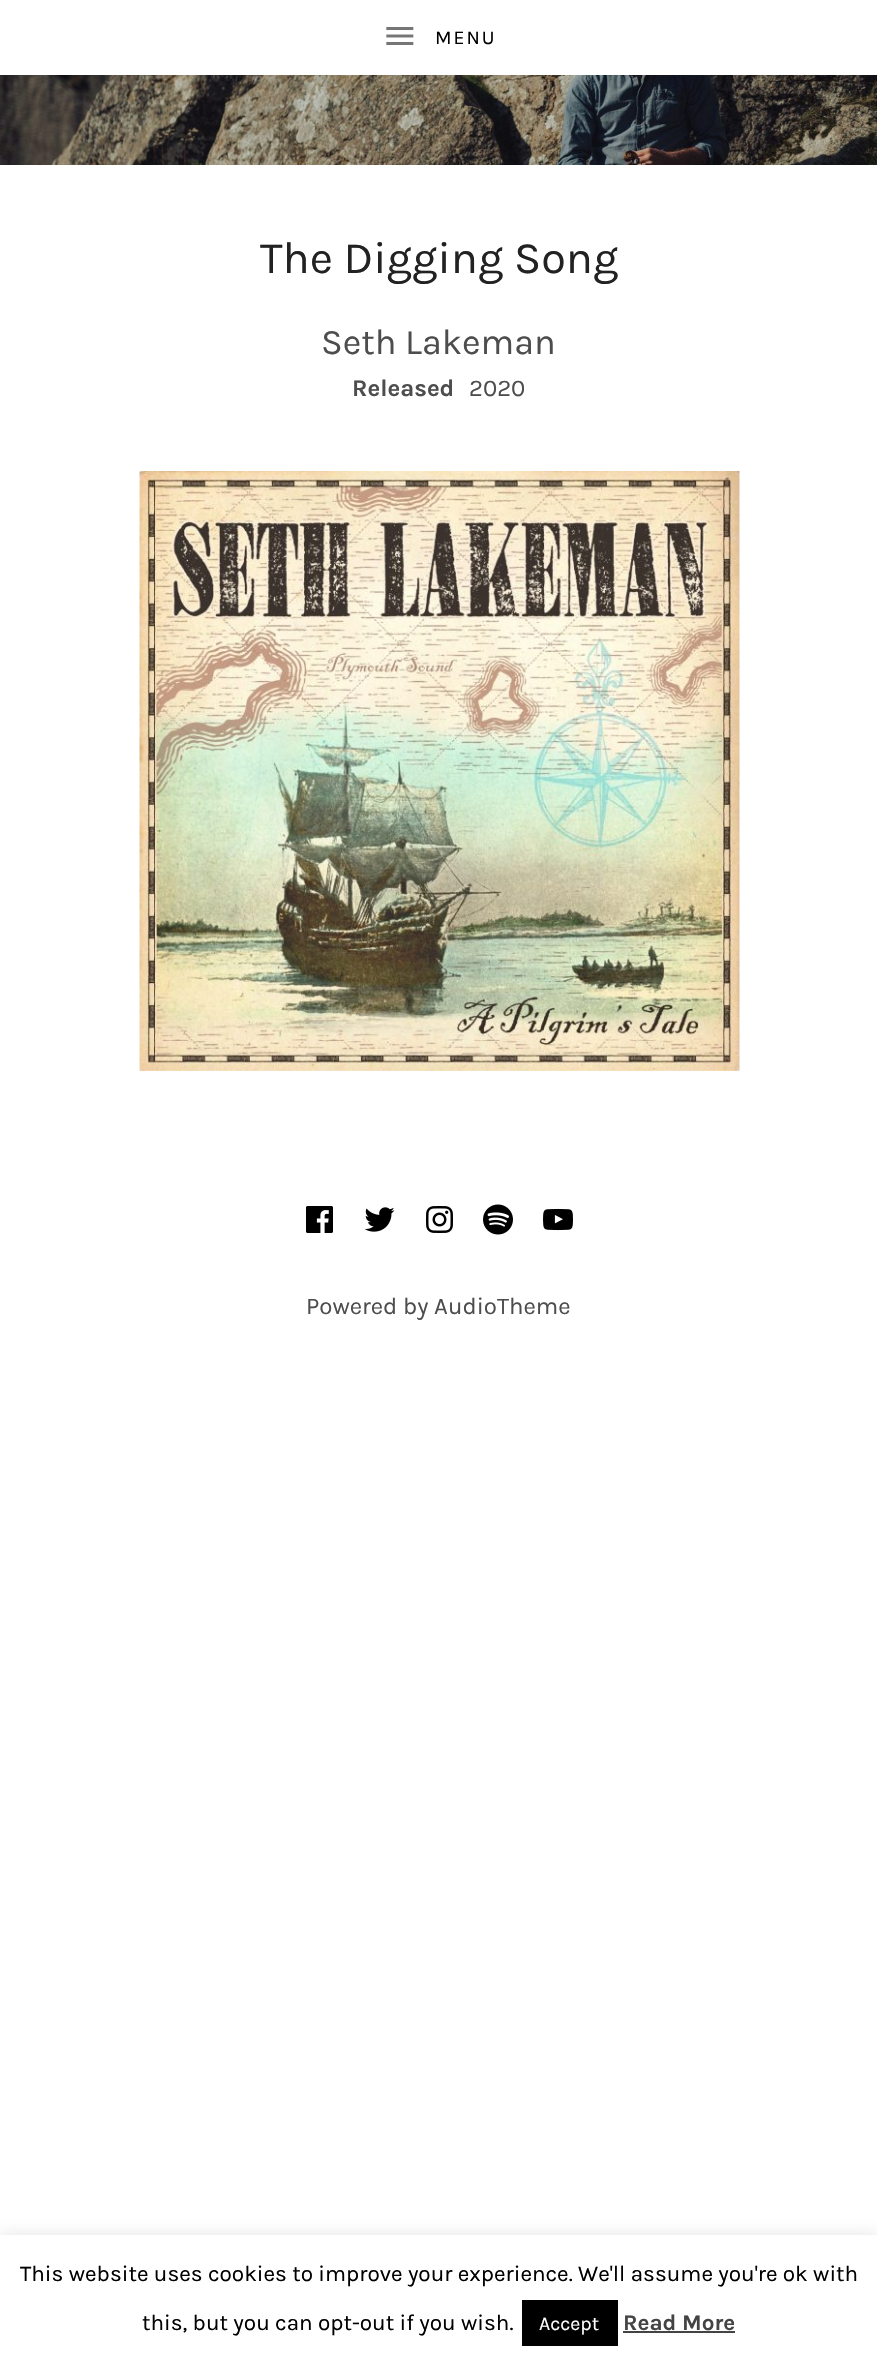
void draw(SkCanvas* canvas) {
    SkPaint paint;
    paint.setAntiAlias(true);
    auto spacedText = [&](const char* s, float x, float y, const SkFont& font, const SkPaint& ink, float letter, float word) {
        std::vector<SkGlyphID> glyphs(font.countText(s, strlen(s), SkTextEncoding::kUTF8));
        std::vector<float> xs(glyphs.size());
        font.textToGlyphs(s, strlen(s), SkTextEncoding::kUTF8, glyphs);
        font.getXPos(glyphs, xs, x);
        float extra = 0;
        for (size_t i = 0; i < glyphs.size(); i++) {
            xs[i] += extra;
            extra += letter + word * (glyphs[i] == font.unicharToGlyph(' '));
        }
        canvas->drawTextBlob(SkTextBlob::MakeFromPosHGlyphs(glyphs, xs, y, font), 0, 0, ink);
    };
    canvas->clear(0xFFFFFFFF);
    canvas->drawImageRect(SkImages::DeferredFromEncodedData(SkData::MakeFromFileName("img1.png")), SkRect::MakeXYWH(386, 27, 28, 18), SkSamplingOptions());
    SkFont font1(fontMgr->matchFamilyStyle("Karla", SkFontStyle::Normal()), 19.5f);
    font1.setSubpixel(true);
    paint.setColor(0xFF000000);
    spacedText("MENU", 435, 44, font1, paint, 2, 0);
    canvas->drawImageRect(SkImages::DeferredFromEncodedData(SkData::MakeFromFileName("img2.png")), SkRect::MakeXYWH(0, 75, 877, 90), SkSamplingOptions());
    SkFont font2(fontMgr->matchFamilyStyle("Karla", SkFontStyle::Normal()), 45);
    font2.setSubpixel(true);
    paint.setColor(0xFF222222);
    canvas->drawString("The Digging Song", 260, 273, font2, paint);
    SkFont font3(fontMgr->matchFamilyStyle("Karla", SkFontStyle::Normal()), 36);
    font3.setSubpixel(true);
    paint.setColor(0xFF4D4D4D);
    canvas->drawString("Seth Lakeman", 321, 354, font3, paint);
    SkFont font4(fontMgr->matchFamilyStyle("Karla", SkFontStyle::Bold()), 24);
    font4.setSubpixel(true);
    canvas->drawString("Released", 352, 396, font4, paint);
    SkFont font5(fontMgr->matchFamilyStyle("Karla", SkFontStyle::Normal()), 24);
    font5.setSubpixel(true);
    canvas->drawString("2020", 469, 396, font5, paint);
    canvas->drawImageRect(SkImages::DeferredFromEncodedData(SkData::MakeFromFileName("img3.png")), SkRect::MakeXYWH(139, 471, 601, 600), SkSamplingOptions());
    canvas->drawImageRect(SkImages::DeferredFromEncodedData(SkData::MakeFromFileName("img4.png")), SkRect::MakeXYWH(306, 1206, 27, 27), SkSamplingOptions());
    canvas->drawImageRect(SkImages::DeferredFromEncodedData(SkData::MakeFromFileName("img5.png")), SkRect::MakeXYWH(364, 1207, 31, 25), SkSamplingOptions());
    canvas->drawImageRect(SkImages::DeferredFromEncodedData(SkData::MakeFromFileName("img6.png")), SkRect::MakeXYWH(426, 1206, 27, 27), SkSamplingOptions());
    canvas->drawImageRect(SkImages::DeferredFromEncodedData(SkData::MakeFromFileName("img7.png")), SkRect::MakeXYWH(483, 1204, 30, 31), SkSamplingOptions());
    canvas->drawImageRect(SkImages::DeferredFromEncodedData(SkData::MakeFromFileName("img8.png")), SkRect::MakeXYWH(543, 1208, 30, 23), SkSamplingOptions());
    canvas->drawString("Powered by AudioTheme", 306, 1314, font5, paint);
    paint.setColor(0x4DACABAB);
    paint.setMaskFilter(SkMaskFilter::MakeBlur(kNormal_SkBlurStyle, 7.5f));
    canvas->drawRect(SkRect::MakeXYWH(0, 2234, 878, 129), paint);
    paint.setMaskFilter(nullptr);
    paint.setColor(0xFFFFFFFF);
    canvas->drawRect(SkRect::MakeXYWH(0, 2235, 877, 129), paint);
    SkFont font6(fontMgr->matchFamilyStyle("Karla", SkFontStyle::Normal()), 22.5f);
    font6.setSubpixel(true);
    paint.setColor(0xFF000000);
    canvas->drawString("This website uses cookies to improve your experience. We'll assume you're ok with", 20, 2281, font6, paint);
    canvas->drawString("this, but you can opt-out if you wish.", 142, 2330, font6, paint);
    canvas->drawRect(SkRect::MakeXYWH(522, 2300, 96, 46), paint);
    paint.setColor(0xFFFFFFFF);
    canvas->drawString("Accept", 539, 2330, font1, paint);
    SkFont font7(fontMgr->matchFamilyStyle("Karla", SkFontStyle::Bold()), 22.5f);
    font7.setSubpixel(true);
    paint.setColor(0xFF444444);
    canvas->drawString("Read More", 623, 2330, font7, paint);
    canvas->drawRect(SkRect::MakeXYWH(623, 2331, 112, 2), paint);
}
